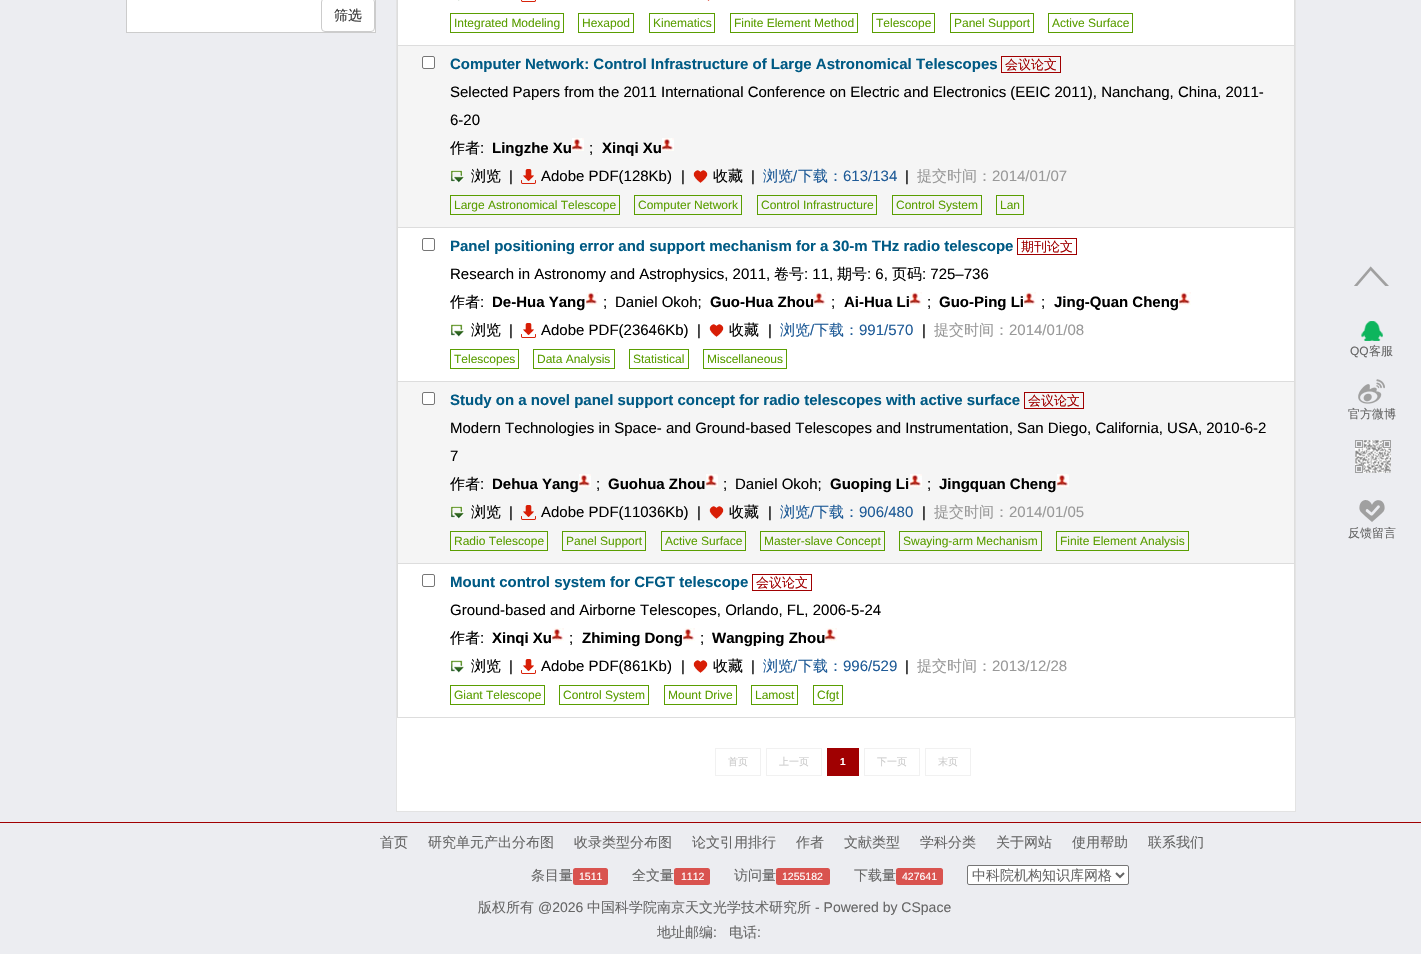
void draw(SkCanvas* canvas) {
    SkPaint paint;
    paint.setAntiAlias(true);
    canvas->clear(0xFFECEDF1);
    paint.setColor(0xFFFFFFFF);
    canvas->drawRect(SkRect::MakeXYWH(126.5f, -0.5f, 249, 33), paint);
    paint.setStyle(SkPaint::kStroke_Style);
    paint.setStrokeWidth(1);
    paint.setColor(0xFFCCCCCC);
    canvas->drawRect(SkRect::MakeXYWH(126.5f, -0.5f, 249, 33), paint);
    canvas->drawRoundRect(SkRect::MakeXYWH(321.5f, -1.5f, 53, 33), 3.5f, 3.5f, paint);
    SkFont font1(fontMgr->matchFamilyStyle("WenQuanYi Zen Hei", SkFontStyle(500, SkFontStyle::kNormal_Width, SkFontStyle::kUpright_Slant)), 14);
    font1.setSubpixel(true);
    paint.setStyle(SkPaint::kFill_Style);
    paint.setColor(0xFF333333);
    canvas->drawString("筛选", 334, 20, font1, paint);
    paint.setColor(0xFFFFFFFF);
    canvas->drawRect(SkRect::MakeXYWH(396.5f, -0.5f, 899, 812), paint);
    paint.setStyle(SkPaint::kStroke_Style);
    paint.setColor(0xFFE3E3E3);
    canvas->drawRect(SkRect::MakeXYWH(396.5f, -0.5f, 899, 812), paint);
    canvas->drawImageRect(SkImages::DeferredFromEncodedData(SkData::MakeFromFileName("img1.png")), SkRect::MakeXYWH(458, 0, 2, 1), SkSamplingOptions());
    canvas->drawImageRect(SkImages::DeferredFromEncodedData(SkData::MakeFromFileName("img2.png")), SkRect::MakeXYWH(521, 0, 15, 2), SkSamplingOptions());
    canvas->drawImageRect(SkImages::DeferredFromEncodedData(SkData::MakeFromFileName("img3.png")), SkRect::MakeXYWH(707, 0, 3, 1), SkSamplingOptions());
    paint.setColor(0xFF5A9E01);
    canvas->drawRect(SkRect::MakeXYWH(450.5f, 13.5f, 113, 19), paint);
    SkFont font2(fontMgr->matchFamilyStyle("Liberation Sans", SkFontStyle::Normal()), 12);
    font2.setSubpixel(true);
    paint.setStyle(SkPaint::kFill_Style);
    canvas->drawString("Integrated Modeling", 454, 27, font2, paint);
    paint.setStyle(SkPaint::kStroke_Style);
    canvas->drawRect(SkRect::MakeXYWH(578.5f, 13.5f, 55, 19), paint);
    paint.setStyle(SkPaint::kFill_Style);
    canvas->drawString("Hexapod", 582, 27, font2, paint);
    paint.setStyle(SkPaint::kStroke_Style);
    canvas->drawRect(SkRect::MakeXYWH(649.5f, 13.5f, 65, 19), paint);
    paint.setStyle(SkPaint::kFill_Style);
    canvas->drawString("Kinematics", 653, 27, font2, paint);
    paint.setStyle(SkPaint::kStroke_Style);
    canvas->drawRect(SkRect::MakeXYWH(730.5f, 13.5f, 127, 19), paint);
    paint.setStyle(SkPaint::kFill_Style);
    canvas->drawString("Finite Element Method", 734, 27, font2, paint);
    paint.setStyle(SkPaint::kStroke_Style);
    canvas->drawRect(SkRect::MakeXYWH(872.5f, 13.5f, 62, 19), paint);
    paint.setStyle(SkPaint::kFill_Style);
    canvas->drawString("Telescope", 876, 27, font2, paint);
    paint.setStyle(SkPaint::kStroke_Style);
    canvas->drawRect(SkRect::MakeXYWH(950.5f, 13.5f, 83, 19), paint);
    paint.setStyle(SkPaint::kFill_Style);
    canvas->drawString("Panel Support", 954, 27, font2, paint);
    paint.setStyle(SkPaint::kStroke_Style);
    canvas->drawRect(SkRect::MakeXYWH(1048.5f, 13.5f, 84, 19), paint);
    paint.setStyle(SkPaint::kFill_Style);
    canvas->drawString("Active Surface", 1052, 27, font2, paint);
    paint.setColor(0xFFF5F5F5);
    canvas->drawRect(SkRect::MakeXYWH(398, 46, 896, 181), paint);
    paint.setColor(0xFFDDDDDD);
    canvas->drawRect(SkRect::MakeXYWH(397, 45, 898, 1), paint);
    canvas->drawRect(SkRect::MakeXYWH(397, 227, 898, 1), paint);
    canvas->drawRect(SkRect::MakeXYWH(397, 381, 898, 1), paint);
    canvas->drawRect(SkRect::MakeXYWH(397, 563, 898, 1), paint);
    canvas->drawRect(SkRect::MakeXYWH(1294, 563, 1, 155), paint);
    canvas->drawRect(SkRect::MakeXYWH(1294, 381, 1, 183), paint);
    canvas->drawRect(SkRect::MakeXYWH(1294, 227, 1, 155), paint);
    canvas->drawRect(SkRect::MakeXYWH(1294, 0, 1, 228), paint);
    canvas->drawRect(SkRect::MakeXYWH(397, 717, 898, 1), paint);
    canvas->drawRect(SkRect::MakeXYWH(397, 563, 1, 155), paint);
    canvas->drawRect(SkRect::MakeXYWH(397, 381, 1, 183), paint);
    canvas->drawRect(SkRect::MakeXYWH(397, 227, 1, 155), paint);
    canvas->drawRect(SkRect::MakeXYWH(397, 0, 1, 228), paint);
    paint.setColor(0xFFFFFFFF);
    canvas->drawRoundRect(SkRect::MakeXYWH(422.5f, 56.5f, 12, 12), 1.5f, 1.5f, paint);
    paint.setStyle(SkPaint::kStroke_Style);
    paint.setColor(0xFF767676);
    canvas->drawRoundRect(SkRect::MakeXYWH(422.5f, 56.5f, 12, 12), 1.5f, 1.5f, paint);
    SkFont font3(fontMgr->matchFamilyStyle("Liberation Sans", SkFontStyle::Bold()), 15);
    font3.setSubpixel(true);
    paint.setStyle(SkPaint::kFill_Style);
    paint.setColor(0xFF005A84);
    canvas->drawString("Computer Network: Control Infrastructure of Large Astronomical Telescopes", 450, 69, font3, paint);
    paint.setStyle(SkPaint::kStroke_Style);
    paint.setColor(0xFFA00001);
    canvas->drawRect(SkRect::MakeXYWH(1001.5f, 56.5f, 59, 16), paint);
    SkFont font4(fontMgr->matchFamilyStyle("WenQuanYi Zen Hei", SkFontStyle(500, SkFontStyle::kNormal_Width, SkFontStyle::kUpright_Slant)), 13);
    font4.setSubpixel(true);
    paint.setStyle(SkPaint::kFill_Style);
    canvas->drawString("会议论文", 1005, 69, font4, paint);
    SkFont font5(fontMgr->matchFamilyStyle("Liberation Sans", SkFontStyle::Normal()), 15);
    font5.setSubpixel(true);
    paint.setColor(0xFF000000);
    canvas->drawString("Selected Papers from the 2011 International Conference on Electric and Electronics (EEIC 2011), Nanchang, China, 2011-", 450, 97, font5, paint);
    canvas->drawString("6-20", 450, 125, font5, paint);
    SkFont font6(fontMgr->matchFamilyStyle("WenQuanYi Zen Hei", SkFontStyle(500, SkFontStyle::kNormal_Width, SkFontStyle::kUpright_Slant)), 15);
    font6.setSubpixel(true);
    canvas->drawString("作者", 450, 153, font6, paint);
    canvas->drawString(":", 480, 153, font5, paint);
    canvas->drawString("Lingzhe Xu", 492, 153, font3, paint);
    canvas->drawImageRect(SkImages::DeferredFromEncodedData(SkData::MakeFromFileName("img4.png")), SkRect::MakeXYWH(572, 138, 12, 13), SkSamplingOptions());
    canvas->drawString(";", 589, 153, font5, paint);
    canvas->drawString("Xinqi Xu", 602, 153, font3, paint);
    canvas->drawImageRect(SkImages::DeferredFromEncodedData(SkData::MakeFromFileName("img4.png")), SkRect::MakeXYWH(662, 138, 12, 13), SkSamplingOptions());
    canvas->drawImageRect(SkImages::DeferredFromEncodedData(SkData::MakeFromFileName("img5.png")), SkRect::MakeXYWH(451, 170, 13, 13), SkSamplingOptions());
    canvas->drawString("浏览", 471, 181, font6, paint);
    canvas->drawString("|", 509, 181, font5, paint);
    canvas->drawImageRect(SkImages::DeferredFromEncodedData(SkData::MakeFromFileName("img6.png")), SkRect::MakeXYWH(521, 169, 15, 15), SkSamplingOptions());
    canvas->drawString("Adobe PDF(128Kb)", 541, 181, font5, paint);
    canvas->drawString("|", 681, 181, font5, paint);
    canvas->drawImageRect(SkImages::DeferredFromEncodedData(SkData::MakeFromFileName("img7.png")), SkRect::MakeXYWH(693, 170, 15, 13), SkSamplingOptions());
    canvas->drawString("收藏", 713, 181, font6, paint);
    canvas->drawString("|", 751, 181, font5, paint);
    paint.setColor(0xFF1F5B97);
    canvas->drawString("浏览", 763, 181, font6, paint);
    canvas->drawString("/", 793, 181, font5, paint);
    canvas->drawString("下载：", 798, 181, font6, paint);
    canvas->drawString("613/134", 843, 181, font5, paint);
    paint.setColor(0xFF000000);
    canvas->drawString("|", 905, 181, font5, paint);
    paint.setColor(0xFF999999);
    canvas->drawString("提交时间：", 917, 181, font6, paint);
    canvas->drawString("2014/01/07", 992, 181, font5, paint);
    paint.setStyle(SkPaint::kStroke_Style);
    paint.setColor(0xFF5A9E01);
    canvas->drawRect(SkRect::MakeXYWH(450.5f, 195.5f, 169, 19), paint);
    paint.setStyle(SkPaint::kFill_Style);
    canvas->drawString("Large Astronomical Telescope", 454, 209, font2, paint);
    paint.setStyle(SkPaint::kStroke_Style);
    canvas->drawRect(SkRect::MakeXYWH(634.5f, 195.5f, 107, 19), paint);
    paint.setStyle(SkPaint::kFill_Style);
    canvas->drawString("Computer Network", 638, 209, font2, paint);
    paint.setStyle(SkPaint::kStroke_Style);
    canvas->drawRect(SkRect::MakeXYWH(757.5f, 195.5f, 119, 19), paint);
    paint.setStyle(SkPaint::kFill_Style);
    canvas->drawString("Control Infrastructure", 761, 209, font2, paint);
    paint.setStyle(SkPaint::kStroke_Style);
    canvas->drawRect(SkRect::MakeXYWH(892.5f, 195.5f, 89, 19), paint);
    paint.setStyle(SkPaint::kFill_Style);
    canvas->drawString("Control System", 896, 209, font2, paint);
    paint.setStyle(SkPaint::kStroke_Style);
    canvas->drawRect(SkRect::MakeXYWH(996.5f, 195.5f, 27, 19), paint);
    paint.setStyle(SkPaint::kFill_Style);
    canvas->drawString("Lan", 1000, 209, font2, paint);
    paint.setStyle(SkPaint::kStroke_Style);
    paint.setColor(0xFF767676);
    canvas->drawRoundRect(SkRect::MakeXYWH(422.5f, 238.5f, 12, 12), 1.5f, 1.5f, paint);
    paint.setStyle(SkPaint::kFill_Style);
    paint.setColor(0xFF005A84);
    canvas->drawString("Panel positioning error and support mechanism for a 30-m THz radio telescope", 450, 251, font3, paint);
    paint.setStyle(SkPaint::kStroke_Style);
    paint.setColor(0xFFA00001);
    canvas->drawRect(SkRect::MakeXYWH(1017.5f, 238.5f, 59, 16), paint);
    paint.setStyle(SkPaint::kFill_Style);
    canvas->drawString("期刊论文", 1021, 251, font4, paint);
    paint.setColor(0xFF000000);
    canvas->drawString("Research in Astronomy and Astrophysics, 2011,", 450, 279, font5, paint);
    canvas->drawString("卷号", 774, 279, font6, paint);
    canvas->drawString(": 11,", 804, 279, font5, paint);
    canvas->drawString("期号", 837, 279, font6, paint);
    canvas->drawString(": 6,", 867, 279, font5, paint);
    canvas->drawString("页码", 892, 279, font6, paint);
    canvas->drawString(": 725–736", 922, 279, font5, paint);
    canvas->drawString("作者", 450, 307, font6, paint);
    canvas->drawString(":", 480, 307, font5, paint);
    canvas->drawString("De-Hua Yang", 492, 307, font3, paint);
    canvas->drawImageRect(SkImages::DeferredFromEncodedData(SkData::MakeFromFileName("img4.png")), SkRect::MakeXYWH(586, 292, 12, 13), SkSamplingOptions());
    canvas->drawString(";", 603, 307, font5, paint);
    canvas->drawString("Daniel Okoh;", 615, 307, font5, paint);
    canvas->drawString("Guo-Hua Zhou", 710, 307, font3, paint);
    canvas->drawImageRect(SkImages::DeferredFromEncodedData(SkData::MakeFromFileName("img4.png")), SkRect::MakeXYWH(814, 292, 12, 13), SkSamplingOptions());
    canvas->drawString(";", 831, 307, font5, paint);
    canvas->drawString("Ai-Hua Li", 844, 307, font3, paint);
    canvas->drawImageRect(SkImages::DeferredFromEncodedData(SkData::MakeFromFileName("img4.png")), SkRect::MakeXYWH(910, 292, 12, 13), SkSamplingOptions());
    canvas->drawString(";", 927, 307, font5, paint);
    canvas->drawString("Guo-Ping Li", 939, 307, font3, paint);
    canvas->drawImageRect(SkImages::DeferredFromEncodedData(SkData::MakeFromFileName("img4.png")), SkRect::MakeXYWH(1024, 292, 12, 13), SkSamplingOptions());
    canvas->drawString(";", 1041, 307, font5, paint);
    canvas->drawString("Jing-Quan Cheng", 1054, 307, font3, paint);
    canvas->drawImageRect(SkImages::DeferredFromEncodedData(SkData::MakeFromFileName("img4.png")), SkRect::MakeXYWH(1179, 292, 12, 13), SkSamplingOptions());
    canvas->drawImageRect(SkImages::DeferredFromEncodedData(SkData::MakeFromFileName("img8.png")), SkRect::MakeXYWH(451, 324, 13, 13), SkSamplingOptions());
    canvas->drawString("浏览", 471, 335, font6, paint);
    canvas->drawString("|", 509, 335, font5, paint);
    canvas->drawImageRect(SkImages::DeferredFromEncodedData(SkData::MakeFromFileName("img9.png")), SkRect::MakeXYWH(521, 323, 15, 15), SkSamplingOptions());
    canvas->drawString("Adobe PDF(23646Kb)", 541, 335, font5, paint);
    canvas->drawString("|", 697, 335, font5, paint);
    canvas->drawImageRect(SkImages::DeferredFromEncodedData(SkData::MakeFromFileName("img10.png")), SkRect::MakeXYWH(709, 324, 15, 13), SkSamplingOptions());
    canvas->drawString("收藏", 729, 335, font6, paint);
    canvas->drawString("|", 768, 335, font5, paint);
    paint.setColor(0xFF1F5B97);
    canvas->drawString("浏览", 780, 335, font6, paint);
    canvas->drawString("/", 810, 335, font5, paint);
    canvas->drawString("下载：", 814, 335, font6, paint);
    canvas->drawString("991/570", 859, 335, font5, paint);
    paint.setColor(0xFF000000);
    canvas->drawString("|", 922, 335, font5, paint);
    paint.setColor(0xFF999999);
    canvas->drawString("提交时间：", 934, 335, font6, paint);
    canvas->drawString("2014/01/08", 1009, 335, font5, paint);
    paint.setStyle(SkPaint::kStroke_Style);
    paint.setColor(0xFF5A9E01);
    canvas->drawRect(SkRect::MakeXYWH(450.5f, 349.5f, 68, 19), paint);
    paint.setStyle(SkPaint::kFill_Style);
    canvas->drawString("Telescopes", 454, 363, font2, paint);
    paint.setStyle(SkPaint::kStroke_Style);
    canvas->drawRect(SkRect::MakeXYWH(533.5f, 349.5f, 81, 19), paint);
    paint.setStyle(SkPaint::kFill_Style);
    canvas->drawString("Data Analysis", 537, 363, font2, paint);
    paint.setStyle(SkPaint::kStroke_Style);
    canvas->drawRect(SkRect::MakeXYWH(629.5f, 349.5f, 59, 19), paint);
    paint.setStyle(SkPaint::kFill_Style);
    canvas->drawString("Statistical", 633, 363, font2, paint);
    paint.setStyle(SkPaint::kStroke_Style);
    canvas->drawRect(SkRect::MakeXYWH(703.5f, 349.5f, 83, 19), paint);
    paint.setStyle(SkPaint::kFill_Style);
    canvas->drawString("Miscellaneous", 707, 363, font2, paint);
    paint.setColor(0xFFF5F5F5);
    canvas->drawRect(SkRect::MakeXYWH(398, 382, 896, 181), paint);
    paint.setColor(0xFFFFFFFF);
    canvas->drawRoundRect(SkRect::MakeXYWH(422.5f, 392.5f, 12, 12), 1.5f, 1.5f, paint);
    paint.setStyle(SkPaint::kStroke_Style);
    paint.setColor(0xFF767676);
    canvas->drawRoundRect(SkRect::MakeXYWH(422.5f, 392.5f, 12, 12), 1.5f, 1.5f, paint);
    paint.setStyle(SkPaint::kFill_Style);
    paint.setColor(0xFF005A84);
    canvas->drawString("Study on a novel panel support concept for radio telescopes with active surface", 450, 405, font3, paint);
    paint.setStyle(SkPaint::kStroke_Style);
    paint.setColor(0xFFA00001);
    canvas->drawRect(SkRect::MakeXYWH(1024.5f, 392.5f, 59, 16), paint);
    paint.setStyle(SkPaint::kFill_Style);
    canvas->drawString("会议论文", 1028, 405, font4, paint);
    paint.setColor(0xFF000000);
    canvas->drawString("Modern Technologies in Space- and Ground-based Telescopes and Instrumentation, San Diego, California, USA, 2010-6-2", 450, 433, font5, paint);
    canvas->drawString("7", 450, 461, font5, paint);
    canvas->drawString("作者", 450, 489, font6, paint);
    canvas->drawString(":", 480, 489, font5, paint);
    canvas->drawString("Dehua Yang", 492, 489, font3, paint);
    canvas->drawImageRect(SkImages::DeferredFromEncodedData(SkData::MakeFromFileName("img4.png")), SkRect::MakeXYWH(579, 474, 12, 13), SkSamplingOptions());
    canvas->drawString(";", 596, 489, font5, paint);
    canvas->drawString("Guohua Zhou", 608, 489, font3, paint);
    canvas->drawImageRect(SkImages::DeferredFromEncodedData(SkData::MakeFromFileName("img4.png")), SkRect::MakeXYWH(706, 474, 12, 13), SkSamplingOptions());
    canvas->drawString(";", 723, 489, font5, paint);
    canvas->drawString("Daniel Okoh;", 735, 489, font5, paint);
    canvas->drawString("Guoping Li", 830, 489, font3, paint);
    canvas->drawImageRect(SkImages::DeferredFromEncodedData(SkData::MakeFromFileName("img4.png")), SkRect::MakeXYWH(910, 474, 12, 13), SkSamplingOptions());
    canvas->drawString(";", 927, 489, font5, paint);
    canvas->drawString("Jingquan Cheng", 939, 489, font3, paint);
    canvas->drawImageRect(SkImages::DeferredFromEncodedData(SkData::MakeFromFileName("img4.png")), SkRect::MakeXYWH(1057, 474, 12, 13), SkSamplingOptions());
    canvas->drawImageRect(SkImages::DeferredFromEncodedData(SkData::MakeFromFileName("img5.png")), SkRect::MakeXYWH(451, 506, 13, 13), SkSamplingOptions());
    canvas->drawString("浏览", 471, 517, font6, paint);
    canvas->drawString("|", 509, 517, font5, paint);
    canvas->drawImageRect(SkImages::DeferredFromEncodedData(SkData::MakeFromFileName("img11.png")), SkRect::MakeXYWH(521, 505, 15, 15), SkSamplingOptions());
    canvas->drawString("Adobe PDF(11036Kb)", 541, 517, font5, paint);
    canvas->drawString("|", 697, 517, font5, paint);
    canvas->drawImageRect(SkImages::DeferredFromEncodedData(SkData::MakeFromFileName("img12.png")), SkRect::MakeXYWH(709, 506, 15, 13), SkSamplingOptions());
    canvas->drawString("收藏", 729, 517, font6, paint);
    canvas->drawString("|", 768, 517, font5, paint);
    paint.setColor(0xFF1F5B97);
    canvas->drawString("浏览", 780, 517, font6, paint);
    canvas->drawString("/", 810, 517, font5, paint);
    canvas->drawString("下载：", 814, 517, font6, paint);
    canvas->drawString("906/480", 859, 517, font5, paint);
    paint.setColor(0xFF000000);
    canvas->drawString("|", 922, 517, font5, paint);
    paint.setColor(0xFF999999);
    canvas->drawString("提交时间：", 934, 517, font6, paint);
    canvas->drawString("2014/01/05", 1009, 517, font5, paint);
    paint.setStyle(SkPaint::kStroke_Style);
    paint.setColor(0xFF5A9E01);
    canvas->drawRect(SkRect::MakeXYWH(450.5f, 531.5f, 97, 19), paint);
    paint.setStyle(SkPaint::kFill_Style);
    canvas->drawString("Radio Telescope", 454, 545, font2, paint);
    paint.setStyle(SkPaint::kStroke_Style);
    canvas->drawRect(SkRect::MakeXYWH(562.5f, 531.5f, 83, 19), paint);
    paint.setStyle(SkPaint::kFill_Style);
    canvas->drawString("Panel Support", 566, 545, font2, paint);
    paint.setStyle(SkPaint::kStroke_Style);
    canvas->drawRect(SkRect::MakeXYWH(661.5f, 531.5f, 84, 19), paint);
    paint.setStyle(SkPaint::kFill_Style);
    canvas->drawString("Active Surface", 665, 545, font2, paint);
    paint.setStyle(SkPaint::kStroke_Style);
    canvas->drawRect(SkRect::MakeXYWH(760.5f, 531.5f, 124, 19), paint);
    paint.setStyle(SkPaint::kFill_Style);
    canvas->drawString("Master-slave Concept", 764, 545, font2, paint);
    paint.setStyle(SkPaint::kStroke_Style);
    canvas->drawRect(SkRect::MakeXYWH(899.5f, 531.5f, 142, 19), paint);
    paint.setStyle(SkPaint::kFill_Style);
    canvas->drawString("Swaying-arm Mechanism", 903, 545, font2, paint);
    paint.setStyle(SkPaint::kStroke_Style);
    canvas->drawRect(SkRect::MakeXYWH(1056.5f, 531.5f, 132, 19), paint);
    paint.setStyle(SkPaint::kFill_Style);
    canvas->drawString("Finite Element Analysis", 1060, 545, font2, paint);
    paint.setStyle(SkPaint::kStroke_Style);
    paint.setColor(0xFF767676);
    canvas->drawRoundRect(SkRect::MakeXYWH(422.5f, 574.5f, 12, 12), 1.5f, 1.5f, paint);
    paint.setStyle(SkPaint::kFill_Style);
    paint.setColor(0xFF005A84);
    canvas->drawString("Mount control system for CFGT telescope", 450, 587, font3, paint);
    paint.setStyle(SkPaint::kStroke_Style);
    paint.setColor(0xFFA00001);
    canvas->drawRect(SkRect::MakeXYWH(752.5f, 574.5f, 59, 16), paint);
    paint.setStyle(SkPaint::kFill_Style);
    canvas->drawString("会议论文", 756, 587, font4, paint);
    paint.setColor(0xFF000000);
    canvas->drawString("Ground-based and Airborne Telescopes, Orlando, FL, 2006-5-24", 450, 615, font5, paint);
    canvas->drawString("作者", 450, 643, font6, paint);
    canvas->drawString(":", 480, 643, font5, paint);
    canvas->drawString("Xinqi Xu", 492, 643, font3, paint);
    canvas->drawImageRect(SkImages::DeferredFromEncodedData(SkData::MakeFromFileName("img4.png")), SkRect::MakeXYWH(552, 628, 12, 13), SkSamplingOptions());
    canvas->drawString(";", 569, 643, font5, paint);
    canvas->drawString("Zhiming Dong", 582, 643, font3, paint);
    canvas->drawImageRect(SkImages::DeferredFromEncodedData(SkData::MakeFromFileName("img4.png")), SkRect::MakeXYWH(683, 628, 12, 13), SkSamplingOptions());
    canvas->drawString(";", 700, 643, font5, paint);
    canvas->drawString("Wangping Zhou", 712, 643, font3, paint);
    canvas->drawImageRect(SkImages::DeferredFromEncodedData(SkData::MakeFromFileName("img4.png")), SkRect::MakeXYWH(825, 628, 12, 13), SkSamplingOptions());
    canvas->drawImageRect(SkImages::DeferredFromEncodedData(SkData::MakeFromFileName("img8.png")), SkRect::MakeXYWH(451, 660, 13, 13), SkSamplingOptions());
    canvas->drawString("浏览", 471, 671, font6, paint);
    canvas->drawString("|", 509, 671, font5, paint);
    canvas->drawImageRect(SkImages::DeferredFromEncodedData(SkData::MakeFromFileName("img13.png")), SkRect::MakeXYWH(521, 659, 15, 15), SkSamplingOptions());
    canvas->drawString("Adobe PDF(861Kb)", 541, 671, font5, paint);
    canvas->drawString("|", 681, 671, font5, paint);
    canvas->drawImageRect(SkImages::DeferredFromEncodedData(SkData::MakeFromFileName("img14.png")), SkRect::MakeXYWH(693, 660, 15, 13), SkSamplingOptions());
    canvas->drawString("收藏", 713, 671, font6, paint);
    canvas->drawString("|", 751, 671, font5, paint);
    paint.setColor(0xFF1F5B97);
    canvas->drawString("浏览", 763, 671, font6, paint);
    canvas->drawString("/", 793, 671, font5, paint);
    canvas->drawString("下载：", 798, 671, font6, paint);
    canvas->drawString("996/529", 843, 671, font5, paint);
    paint.setColor(0xFF000000);
    canvas->drawString("|", 905, 671, font5, paint);
    paint.setColor(0xFF999999);
    canvas->drawString("提交时间：", 917, 671, font6, paint);
    canvas->drawString("2013/12/28", 992, 671, font5, paint);
    paint.setStyle(SkPaint::kStroke_Style);
    paint.setColor(0xFF5A9E01);
    canvas->drawRect(SkRect::MakeXYWH(450.5f, 685.5f, 94, 19), paint);
    paint.setStyle(SkPaint::kFill_Style);
    canvas->drawString("Giant Telescope", 454, 699, font2, paint);
    paint.setStyle(SkPaint::kStroke_Style);
    canvas->drawRect(SkRect::MakeXYWH(559.5f, 685.5f, 89, 19), paint);
    paint.setStyle(SkPaint::kFill_Style);
    canvas->drawString("Control System", 563, 699, font2, paint);
    paint.setStyle(SkPaint::kStroke_Style);
    canvas->drawRect(SkRect::MakeXYWH(664.5f, 685.5f, 72, 19), paint);
    paint.setStyle(SkPaint::kFill_Style);
    canvas->drawString("Mount Drive", 668, 699, font2, paint);
    paint.setStyle(SkPaint::kStroke_Style);
    canvas->drawRect(SkRect::MakeXYWH(751.5f, 685.5f, 46, 19), paint);
    paint.setStyle(SkPaint::kFill_Style);
    canvas->drawString("Lamost", 755, 699, font2, paint);
    paint.setStyle(SkPaint::kStroke_Style);
    canvas->drawRect(SkRect::MakeXYWH(813.5f, 685.5f, 29, 19), paint);
    paint.setStyle(SkPaint::kFill_Style);
    canvas->drawString("Cfgt", 817, 699, font2, paint);
    paint.setStyle(SkPaint::kStroke_Style);
    paint.setColor(0xFFF1F1F1);
    canvas->drawRect(SkRect::MakeXYWH(715.5f, 748.5f, 45, 27), paint);
    SkFont font7(fontMgr->matchFamilyStyle("WenQuanYi Zen Hei", SkFontStyle(500, SkFontStyle::kNormal_Width, SkFontStyle::kUpright_Slant)), 10);
    font7.setSubpixel(true);
    paint.setStyle(SkPaint::kFill_Style);
    paint.setColor(0xFFCCCCCC);
    canvas->drawString("首页", 728, 765, font7, paint);
    paint.setStyle(SkPaint::kStroke_Style);
    paint.setColor(0xFFF1F1F1);
    canvas->drawRect(SkRect::MakeXYWH(766.5f, 748.5f, 55, 27), paint);
    paint.setStyle(SkPaint::kFill_Style);
    paint.setColor(0xFFCCCCCC);
    canvas->drawString("上一页", 779, 765, font7, paint);
    paint.setColor(0xFFA00001);
    canvas->drawRect(SkRect::MakeXYWH(827, 748, 32, 28), paint);
    SkFont font8(fontMgr->matchFamilyStyle("Liberation Sans", SkFontStyle::Bold()), 10);
    font8.setSubpixel(true);
    paint.setColor(0xFFFFFFFF);
    canvas->drawString("1", 840, 765, font8, paint);
    paint.setStyle(SkPaint::kStroke_Style);
    paint.setColor(0xFFF1F1F1);
    canvas->drawRect(SkRect::MakeXYWH(864.5f, 748.5f, 55, 27), paint);
    paint.setStyle(SkPaint::kFill_Style);
    paint.setColor(0xFFCCCCCC);
    canvas->drawString("下一页", 877, 765, font7, paint);
    paint.setStyle(SkPaint::kStroke_Style);
    paint.setColor(0xFFF1F1F1);
    canvas->drawRect(SkRect::MakeXYWH(925.5f, 748.5f, 45, 27), paint);
    paint.setStyle(SkPaint::kFill_Style);
    paint.setColor(0xFFCCCCCC);
    canvas->drawString("末页", 938, 765, font7, paint);
    canvas->drawImageRect(SkImages::DeferredFromEncodedData(SkData::MakeFromFileName("img15.png")), SkRect::MakeXYWH(1354, 266, 35, 20), SkSamplingOptions());
    canvas->drawImageRect(SkImages::DeferredFromEncodedData(SkData::MakeFromFileName("img16.png")), SkRect::MakeXYWH(1361, 321, 22, 20), SkSamplingOptions());
    paint.setColor(0xFF666666);
    canvas->drawString("QQ", 1350, 355, font2, paint);
    SkFont font9(fontMgr->matchFamilyStyle("WenQuanYi Zen Hei", SkFontStyle(500, SkFontStyle::kNormal_Width, SkFontStyle::kUpright_Slant)), 12);
    font9.setSubpixel(true);
    canvas->drawString("客服", 1369, 355, font9, paint);
    canvas->drawImageRect(SkImages::DeferredFromEncodedData(SkData::MakeFromFileName("img17.png")), SkRect::MakeXYWH(1358, 379, 27, 25), SkSamplingOptions());
    canvas->drawString("官方微博", 1348, 418, font9, paint);
    canvas->drawImageRect(SkImages::DeferredFromEncodedData(SkData::MakeFromFileName("img18.png")), SkRect::MakeXYWH(1355, 440, 36, 33), SkSamplingOptions());
    canvas->drawImageRect(SkImages::DeferredFromEncodedData(SkData::MakeFromFileName("img19.png")), SkRect::MakeXYWH(1359, 500, 26, 22), SkSamplingOptions());
    canvas->drawString("反馈留言", 1348, 537, font9, paint);
    paint.setColor(0xFFA00001);
    canvas->drawRect(SkRect::MakeXYWH(0, 822, 1421, 1), paint);
    paint.setColor(0xFF666666);
    canvas->drawString("首页", 380, 847, font1, paint);
    canvas->drawString("研究单元产出分布图", 428, 847, font1, paint);
    canvas->drawString("收录类型分布图", 574, 847, font1, paint);
    canvas->drawString("论文引用排行", 692, 847, font1, paint);
    canvas->drawString("作者", 796, 847, font1, paint);
    canvas->drawString("文献类型", 844, 847, font1, paint);
    canvas->drawString("学科分类", 920, 847, font1, paint);
    canvas->drawString("关于网站", 996, 847, font1, paint);
    canvas->drawString("使用帮助", 1072, 847, font1, paint);
    canvas->drawString("联系我们", 1148, 847, font1, paint);
    canvas->drawString("条目量", 531, 880, font1, paint);
    paint.setColor(0xFFD9534F);
    canvas->drawRoundRect(SkRect::MakeXYWH(573, 868, 35, 17), 2.5f, 2.5f, paint);
    SkFont font10(fontMgr->matchFamilyStyle("Liberation Sans", SkFontStyle::Normal()), 10.5f);
    font10.setSubpixel(true);
    paint.setColor(0xFFFFFFFF);
    canvas->drawString("1511", 579, 880, font10, paint);
    paint.setColor(0xFF666666);
    canvas->drawString("全文量", 632, 880, font1, paint);
    paint.setColor(0xFFD9534F);
    canvas->drawRoundRect(SkRect::MakeXYWH(674, 868, 36, 17), 2.5f, 2.5f, paint);
    paint.setColor(0xFFFFFFFF);
    canvas->drawString("1112", 681, 880, font10, paint);
    paint.setColor(0xFF666666);
    canvas->drawString("访问量", 734, 880, font1, paint);
    paint.setColor(0xFFD9534F);
    canvas->drawRoundRect(SkRect::MakeXYWH(776, 868, 54, 17), 2.5f, 2.5f, paint);
    paint.setColor(0xFFFFFFFF);
    canvas->drawString("1255182", 782, 880, font10, paint);
    paint.setColor(0xFF666666);
    canvas->drawString("下载量", 854, 880, font1, paint);
    paint.setColor(0xFFD9534F);
    canvas->drawRoundRect(SkRect::MakeXYWH(896, 868, 47, 17), 2.5f, 2.5f, paint);
    paint.setColor(0xFFFFFFFF);
    canvas->drawString("427641", 902, 880, font10, paint);
    canvas->drawRoundRect(SkRect::MakeXYWH(967.5f, 865.5f, 161, 19), 1.5f, 1.5f, paint);
    paint.setStyle(SkPaint::kStroke_Style);
    paint.setColor(0xFF767676);
    canvas->drawRoundRect(SkRect::MakeXYWH(967.5f, 865.5f, 161, 19), 1.5f, 1.5f, paint);
    paint.setStrokeWidth(2);
    paint.setColor(0xFF666666);
    canvas->drawPath(SkPathBuilder().moveTo(1116, 873).lineTo(1120, 877).lineTo(1124, 873).detach(), paint);
    paint.setStyle(SkPaint::kFill_Style);
    canvas->drawString("中科院机构知识库网格", 972, 880, font1, paint);
    canvas->drawString("版权所有", 478, 912, font1, paint);
    SkFont font11(fontMgr->matchFamilyStyle("Liberation Sans", SkFontStyle::Normal()), 14);
    font11.setSubpixel(true);
    canvas->drawString("@2026", 538, 912, font11, paint);
    canvas->drawString("中国科学院南京天文光学技术研究所", 587, 912, font1, paint);
    canvas->drawString("- Powered by CSpace", 815, 912, font11, paint);
    canvas->drawString("地址邮编", 657, 937, font1, paint);
    canvas->drawString(":", 713, 937, font11, paint);
    canvas->drawString("电话", 729, 937, font1, paint);
    canvas->drawString(":", 757, 937, font11, paint);
}
